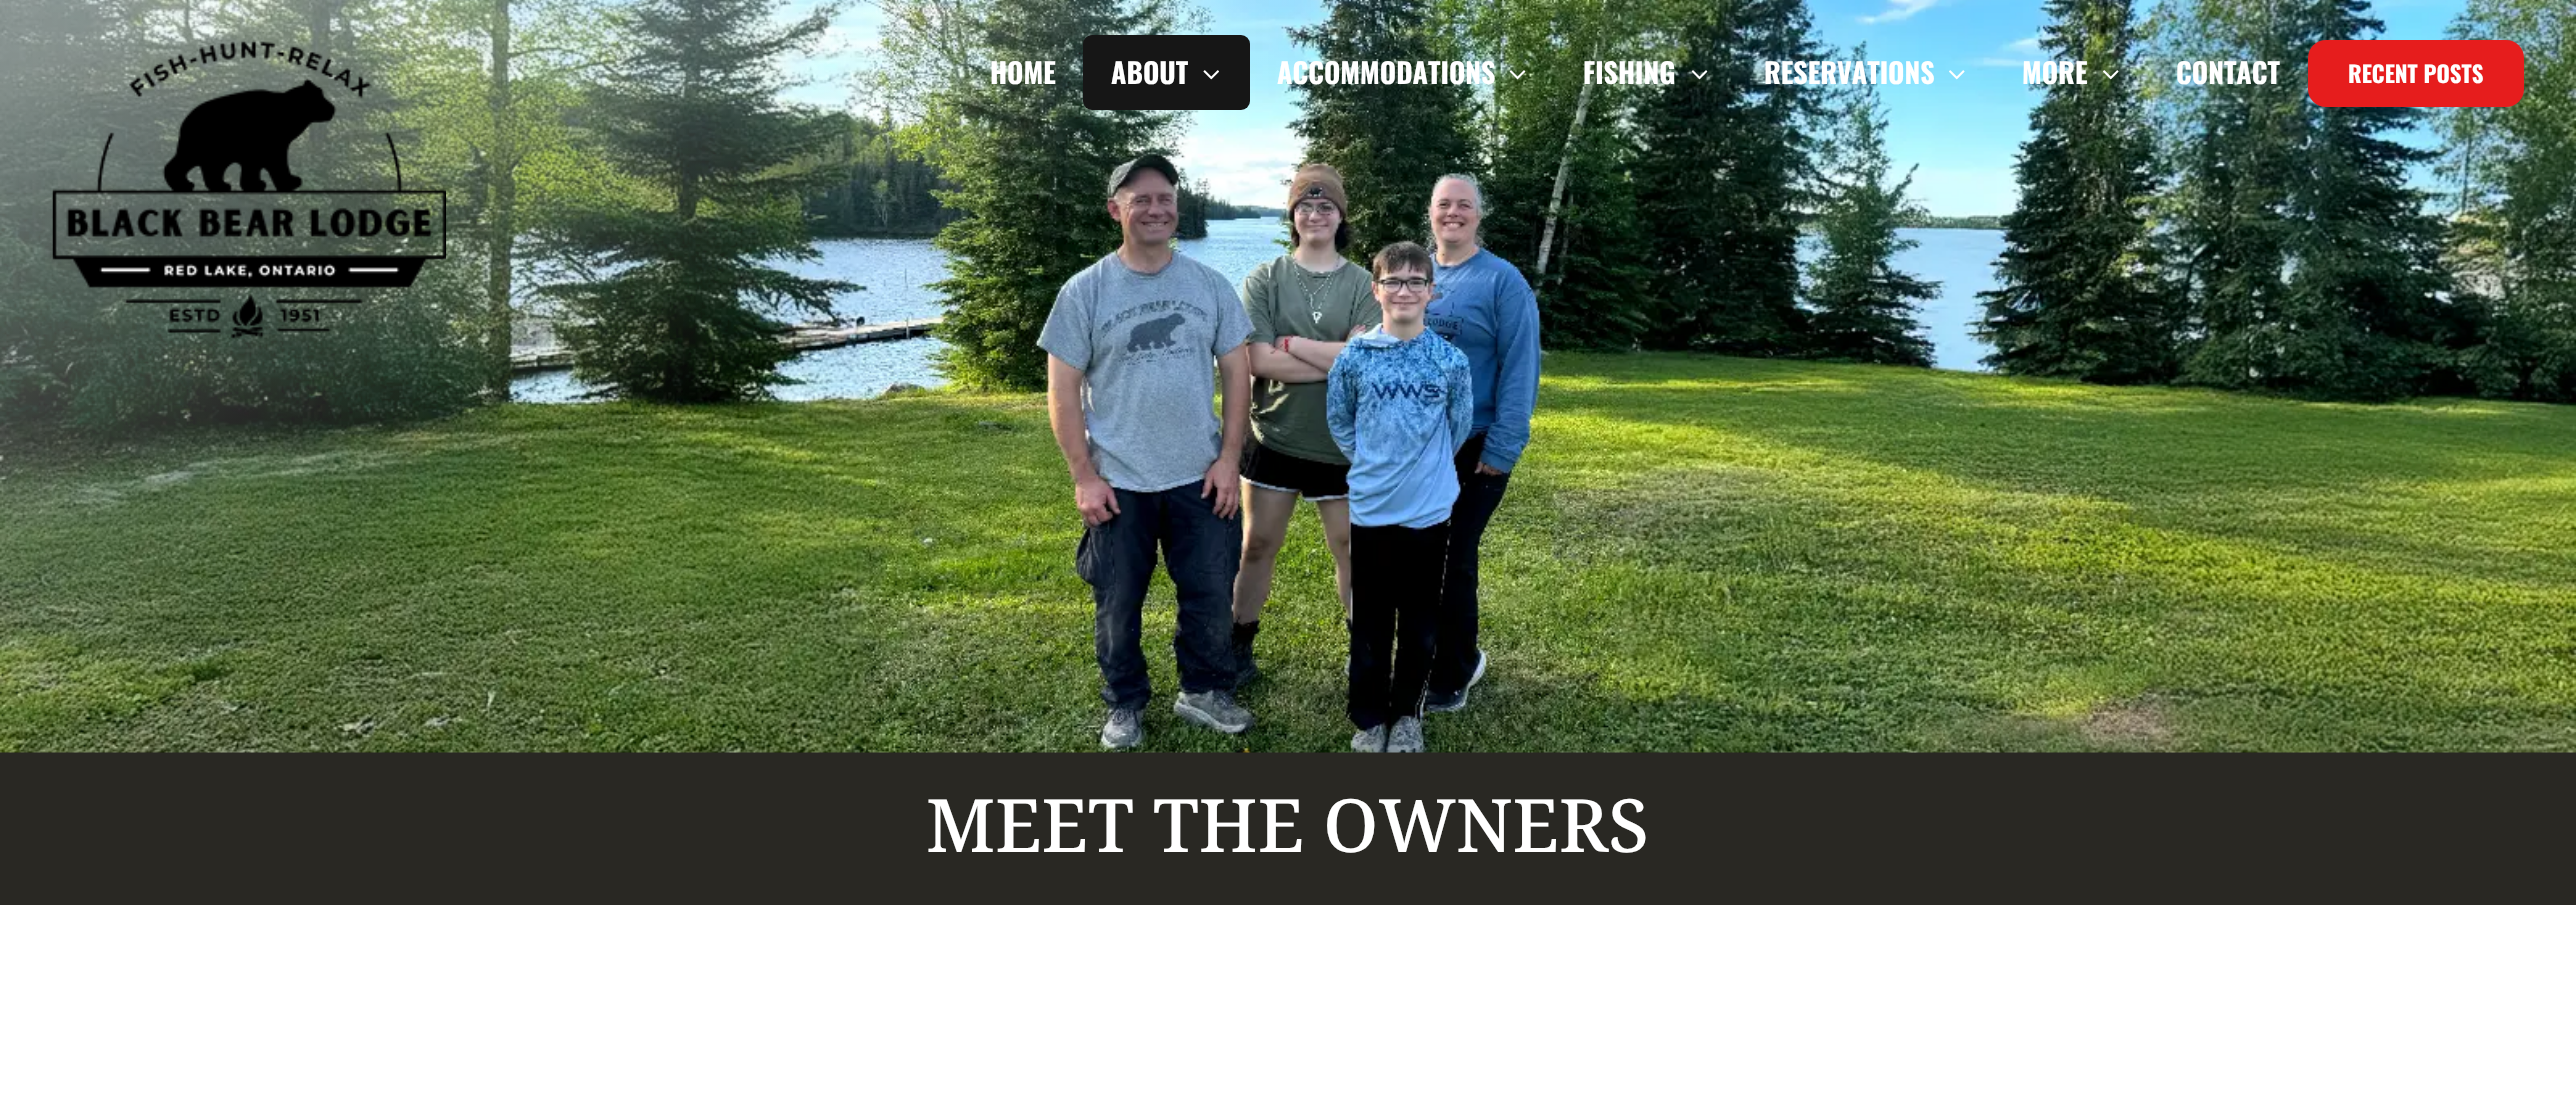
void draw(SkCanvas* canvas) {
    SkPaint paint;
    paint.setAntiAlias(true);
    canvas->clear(0xFFFFFFFF);
    paint.setColor(0xFF292823);
    canvas->drawRect(SkRect::MakeXYWH(0, 752, 2576, 153), paint);
    canvas->drawImageRect(SkImages::DeferredFromEncodedData(SkData::MakeFromFileName("img1.png")), SkRect::MakeXYWH(0, 0, 2576, 753), SkSamplingOptions());
    canvas->drawImageRect(SkImages::DeferredFromEncodedData(SkData::MakeFromFileName("img2.png")), SkRect::MakeXYWH(52, 41, 395, 298), SkSamplingOptions());
    SkFont font1(fontMgr->matchFamilyStyle("Oswald", SkFontStyle::Bold()), 28);
    font1.setSubpixel(true);
    paint.setColor(0xFFFFFFFF);
    canvas->drawString("HOME", 990, 84, font1, paint);
    paint.setColor(0xFF161616);
    canvas->drawRoundRect(SkRect::MakeXYWH(1083, 35, 167, 75), 9, 9, paint);
    paint.setColor(0xFFFFFFFF);
    canvas->drawString("ABOUT", 1111, 84, font1, paint);
    canvas->drawImageRect(SkImages::DeferredFromEncodedData(SkData::MakeFromFileName("img3.png")), SkRect::MakeXYWH(1203, 70, 16, 10), SkSamplingOptions());
    canvas->drawString("ACCOMMODATIONS", 1277, 84, font1, paint);
    canvas->drawImageRect(SkImages::DeferredFromEncodedData(SkData::MakeFromFileName("img4.png")), SkRect::MakeXYWH(1509, 70, 17, 10), SkSamplingOptions());
    canvas->drawString("FISHING", 1583, 84, font1, paint);
    canvas->drawImageRect(SkImages::DeferredFromEncodedData(SkData::MakeFromFileName("img5.png")), SkRect::MakeXYWH(1691, 70, 17, 10), SkSamplingOptions());
    canvas->drawString("RESERVATIONS", 1764, 84, font1, paint);
    canvas->drawImageRect(SkImages::DeferredFromEncodedData(SkData::MakeFromFileName("img6.png")), SkRect::MakeXYWH(1949, 70, 16, 10), SkSamplingOptions());
    canvas->drawString("MORE", 2022, 84, font1, paint);
    canvas->drawImageRect(SkImages::DeferredFromEncodedData(SkData::MakeFromFileName("img7.png")), SkRect::MakeXYWH(2103, 70, 16, 10), SkSamplingOptions());
    canvas->drawString("CONTACT", 2176, 84, font1, paint);
    paint.setColor(0xFFE61D1D);
    canvas->drawRoundRect(SkRect::MakeXYWH(2308, 40, 216, 67), 18, 18, paint);
    SkFont font2(fontMgr->matchFamilyStyle("Oswald", SkFontStyle::Bold()), 22.75f);
    font2.setSubpixel(true);
    paint.setColor(0xFFFFFFFF);
    canvas->drawString("RECENT POSTS", 2348, 83, font2, paint);
    SkFont font3(fontMgr->matchFamilyStyle("Noto Serif", SkFontStyle(500, SkFontStyle::kNormal_Width, SkFontStyle::kUpright_Slant)), 73.5f);
    font3.setSubpixel(true);
    canvas->drawString("MEET THE OWNERS", 926, 852, font3, paint);
}
